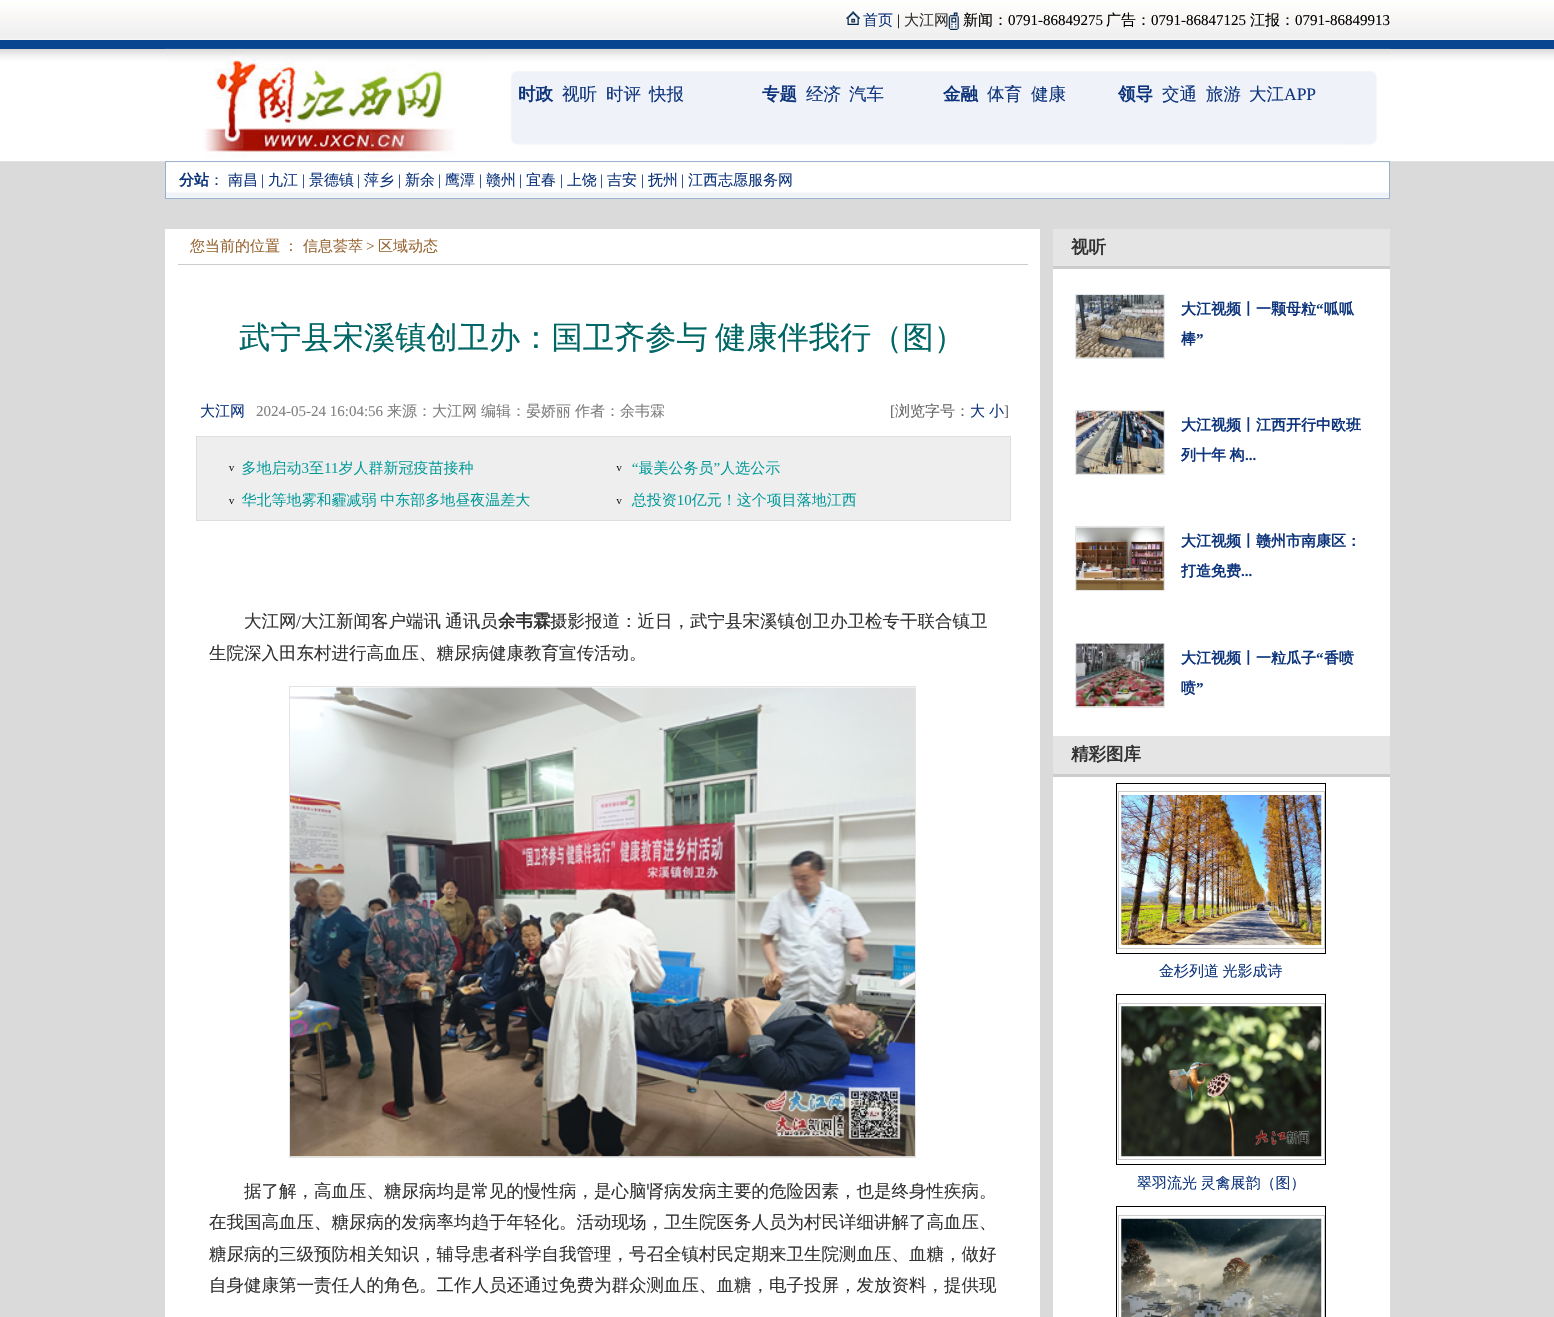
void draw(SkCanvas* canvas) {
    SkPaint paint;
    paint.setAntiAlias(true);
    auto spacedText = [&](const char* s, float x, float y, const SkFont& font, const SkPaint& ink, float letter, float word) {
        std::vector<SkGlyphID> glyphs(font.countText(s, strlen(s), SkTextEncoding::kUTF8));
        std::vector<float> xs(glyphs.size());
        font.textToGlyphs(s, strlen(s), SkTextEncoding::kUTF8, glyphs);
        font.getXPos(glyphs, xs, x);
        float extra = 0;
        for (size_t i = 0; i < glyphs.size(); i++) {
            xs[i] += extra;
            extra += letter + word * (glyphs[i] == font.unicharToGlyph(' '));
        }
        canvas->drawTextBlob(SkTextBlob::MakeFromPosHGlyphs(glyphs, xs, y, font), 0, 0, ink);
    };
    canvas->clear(0xFFDADADA);
    canvas->drawImageRect(SkImages::DeferredFromEncodedData(SkData::MakeFromFileName("img1.png")), SkRect::MakeXYWH(0, 0, 1554, 40), SkSamplingOptions());
    canvas->drawImageRect(SkImages::DeferredFromEncodedData(SkData::MakeFromFileName("img2.png")), SkRect::MakeXYWH(846, 11, 14, 14), SkSamplingOptions());
    SkFont font1(fontMgr->matchFamilyStyle("WenQuanYi Zen Hei", SkFontStyle(500, SkFontStyle::kNormal_Width, SkFontStyle::kUpright_Slant)), 15);
    font1.setSubpixel(true);
    paint.setColor(0xFF0E357C);
    canvas->drawString("首页", 863, 25, font1, paint);
    SkFont font2(fontMgr->matchFamilyStyle("Liberation Serif", SkFontStyle::Normal()), 15);
    font2.setSubpixel(true);
    paint.setColor(0xFF000000);
    canvas->drawString("|", 897, 25, font2, paint);
    paint.setColor(0xFF333333);
    canvas->drawString("大江网", 904, 25, font1, paint);
    canvas->drawImageRect(SkImages::DeferredFromEncodedData(SkData::MakeFromFileName("img3.png")), SkRect::MakeXYWH(948, 12, 11, 18), SkSamplingOptions());
    paint.setColor(0xFF000000);
    canvas->drawString("新闻：", 963, 25, font1, paint);
    canvas->drawString("0791-86849275", 1008, 25, font2, paint);
    canvas->drawString("广告：", 1106, 25, font1, paint);
    canvas->drawString("0791-86847125", 1151, 25, font2, paint);
    canvas->drawString("江报：", 1250, 25, font1, paint);
    canvas->drawString("0791-86849913", 1295, 25, font2, paint);
    paint.setColor(0xFF074590);
    canvas->drawRect(SkRect::MakeXYWH(0, 40, 1554, 9), paint);
    canvas->drawImageRect(SkImages::DeferredFromEncodedData(SkData::MakeFromFileName("img4.png")), SkRect::MakeXYWH(0, 50, 1554, 112), SkSamplingOptions());
    canvas->drawImageRect(SkImages::DeferredFromEncodedData(SkData::MakeFromFileName("img7.png")), SkRect::MakeXYWH(166, 162, 1223, 36), SkSamplingOptions());
    paint.setStyle(SkPaint::kStroke_Style);
    paint.setStrokeWidth(1);
    paint.setColor(0xFF97B0CE);
    canvas->drawRect(SkRect::MakeXYWH(165.5f, 161.5f, 1224, 37), paint);
    canvas->drawImageRect(SkImages::DeferredFromEncodedData(SkData::MakeFromFileName("img5.png")), SkRect::MakeXYWH(165, 48, 325, 114), SkSamplingOptions());
    canvas->drawImageRect(SkImages::DeferredFromEncodedData(SkData::MakeFromFileName("img6.png")), SkRect::MakeXYWH(490, 48, 900, 114), SkSamplingOptions());
    SkFont font3(fontMgr->matchFamilyStyle("WenQuanYi Zen Hei", SkFontStyle::Bold()), 17.5f);
    font3.setSubpixel(true);
    paint.setStyle(SkPaint::kFill_Style);
    paint.setColor(0xFF0E357C);
    canvas->drawString("时政", 518, 100, font3, paint);
    SkFont font4(fontMgr->matchFamilyStyle("WenQuanYi Zen Hei", SkFontStyle(500, SkFontStyle::kNormal_Width, SkFontStyle::kUpright_Slant)), 17.5f);
    font4.setSubpixel(true);
    canvas->drawString("视听", 562, 100, font4, paint);
    canvas->drawString("时评", 606, 100, font4, paint);
    canvas->drawString("快报", 649, 100, font4, paint);
    canvas->drawString("专题", 762, 100, font3, paint);
    canvas->drawString("经济", 806, 100, font4, paint);
    canvas->drawString("汽车", 849, 100, font4, paint);
    canvas->drawString("金融", 943, 100, font3, paint);
    canvas->drawString("体育", 987, 100, font4, paint);
    canvas->drawString("健康", 1031, 100, font4, paint);
    canvas->drawString("领导", 1118, 100, font3, paint);
    canvas->drawString("交通", 1162, 100, font4, paint);
    canvas->drawString("旅游", 1206, 100, font4, paint);
    canvas->drawString("大江", 1249, 100, font4, paint);
    SkFont font5(fontMgr->matchFamilyStyle("Liberation Serif", SkFontStyle::Normal()), 17.5f);
    font5.setSubpixel(true);
    canvas->drawString("APP", 1284, 100, font5, paint);
    SkFont font6(fontMgr->matchFamilyStyle("WenQuanYi Zen Hei", SkFontStyle::Bold()), 15);
    font6.setSubpixel(true);
    canvas->drawString("分站", 179, 185, font6, paint);
    canvas->drawString("：", 209, 185, font1, paint);
    canvas->drawString("南昌", 228, 185, font1, paint);
    canvas->drawString("|", 261, 185, font2, paint);
    canvas->drawString("九江", 268, 185, font1, paint);
    canvas->drawString("|", 302, 185, font2, paint);
    canvas->drawString("景德镇", 309, 185, font1, paint);
    canvas->drawString("|", 357, 185, font2, paint);
    canvas->drawString("萍乡", 364, 185, font1, paint);
    canvas->drawString("|", 398, 185, font2, paint);
    canvas->drawString("新余", 405, 185, font1, paint);
    canvas->drawString("|", 438, 185, font2, paint);
    canvas->drawString("鹰潭", 445, 185, font1, paint);
    canvas->drawString("|", 479, 185, font2, paint);
    canvas->drawString("赣州", 486, 185, font1, paint);
    canvas->drawString("|", 519, 185, font2, paint);
    canvas->drawString("宜春", 526, 185, font1, paint);
    canvas->drawString("|", 560, 185, font2, paint);
    canvas->drawString("上饶", 567, 185, font1, paint);
    canvas->drawString("|", 600, 185, font2, paint);
    canvas->drawString("吉安", 607, 185, font1, paint);
    canvas->drawString("|", 641, 185, font2, paint);
    canvas->drawString("抚州", 648, 185, font1, paint);
    canvas->drawString("|", 681, 185, font2, paint);
    canvas->drawString("江西志愿服务网", 688, 185, font1, paint);
    paint.setColor(0xFFFFFFFF);
    canvas->drawRect(SkRect::MakeXYWH(165, 229, 875, 1088), paint);
    paint.setColor(0xFFCCCCCC);
    canvas->drawRect(SkRect::MakeXYWH(178, 264, 850, 1), paint);
    paint.setColor(0xFF996633);
    spacedText("您当前的位置 ：", 190, 251, font1, paint, 0, -1);
    canvas->drawString("信息荟萃", 303, 251, font1, paint);
    canvas->drawString(">", 366, 251, font2, paint);
    canvas->drawString("区域动态", 378, 251, font1, paint);
    SkFont font7(fontMgr->matchFamilyStyle("WenQuanYi Zen Hei", SkFontStyle(500, SkFontStyle::kNormal_Width, SkFontStyle::kUpright_Slant)), 31.25f);
    font7.setSubpixel(true);
    paint.setColor(0xFF006666);
    spacedText("武宁县宋溪镇创卫办：国卫齐参与 健康伴我行（图）", 239, 348, font7, paint, 0, -2);
    paint.setColor(0xFF0E357C);
    canvas->drawString("大江网", 200, 416, font1, paint);
    paint.setColor(0xFF808080);
    canvas->drawString("2024-05-24 16:04:56", 256, 416, font2, paint);
    canvas->drawString("来源：大江网", 387, 416, font1, paint);
    canvas->drawString("编辑：晏娇丽", 481, 416, font1, paint);
    canvas->drawString("作者：余韦霖", 575, 416, font1, paint);
    paint.setColor(0xFF666666);
    canvas->drawString("[", 890, 416, font2, paint);
    canvas->drawString("浏览字号：", 895, 416, font1, paint);
    paint.setColor(0xFF0E357C);
    canvas->drawString("大", 970, 416, font1, paint);
    canvas->drawString("小", 989, 416, font1, paint);
    paint.setColor(0xFF666666);
    canvas->drawString("]", 1004, 416, font2, paint);
    paint.setColor(0xFFEEEEEE);
    canvas->drawRect(SkRect::MakeXYWH(196.5f, 436.5f, 814, 84), paint);
    paint.setStyle(SkPaint::kStroke_Style);
    paint.setColor(0xFFDEDEDE);
    canvas->drawRect(SkRect::MakeXYWH(196.5f, 436.5f, 814, 84), paint);
    canvas->drawImageRect(SkImages::DeferredFromEncodedData(SkData::MakeFromFileName("img8.png")), SkRect::MakeXYWH(228, 460, 629, 48), SkSamplingOptions());
    paint.setStyle(SkPaint::kFill_Style);
    paint.setColor(0xFF333333);
    canvas->drawString("大江网", 244, 627, font4, paint);
    canvas->drawString("/", 296, 627, font5, paint);
    spacedText("大江新闻客户端讯 通讯员", 301, 627, font4, paint, 0, -1);
    canvas->drawString("余韦霖", 498, 627, font3, paint);
    canvas->drawString("摄影报道：近日，武宁县宋溪镇创卫办卫检专干联合镇卫", 550, 627, font4, paint);
    canvas->drawString("生院深入田东村进行高血压、糖尿病健康教育宣传活动。", 209, 659, font4, paint);
    paint.setStyle(SkPaint::kStroke_Style);
    paint.setColor(0xFFE4E4E4);
    canvas->drawRect(SkRect::MakeXYWH(289.5f, 686.5f, 626, 471), paint);
    canvas->drawImageRect(SkImages::DeferredFromEncodedData(SkData::MakeFromFileName("img9.png")), SkRect::MakeXYWH(290, 687, 625, 470), SkSamplingOptions());
    paint.setStyle(SkPaint::kFill_Style);
    paint.setColor(0xFF333333);
    canvas->drawString("据了解，高血压、糖尿病均是常见的慢性病，是心脑肾病发病主要的危险因素，也是终身性疾病。", 244, 1197, font4, paint);
    canvas->drawString("在我国高血压、糖尿病的发病率均趋于年轻化。活动现场，卫生院医务人员为村民详细讲解了高血压、", 209, 1228, font4, paint);
    canvas->drawString("糖尿病的三级预防相关知识，辅导患者科学自我管理，号召全镇村民定期来卫生院测血压、血糖，做好", 209, 1260, font4, paint);
    canvas->drawString("自身健康第一责任人的角色。工作人员还通过免费为群众测血压、血糖，电子投屏，发放资料，提供现", 209, 1291, font4, paint);
    paint.setColor(0xFFFFFFFF);
    canvas->drawRect(SkRect::MakeXYWH(1053, 269, 337, 1048), paint);
    paint.setColor(0xFFE5E5E5);
    canvas->drawRect(SkRect::MakeXYWH(1053, 229, 337, 37), paint);
    paint.setColor(0xFFCCCCCC);
    canvas->drawRect(SkRect::MakeXYWH(1053, 266, 337, 3), paint);
    paint.setColor(0xFF333333);
    canvas->drawString("视听", 1071, 253, font3, paint);
    paint.setStyle(SkPaint::kStroke_Style);
    paint.setColor(0xFFE3E7EA);
    canvas->drawRect(SkRect::MakeXYWH(1075.5f, 294.5f, 89, 64), paint);
    canvas->drawImageRect(SkImages::DeferredFromEncodedData(SkData::MakeFromFileName("img10.png")), SkRect::MakeXYWH(1076, 295, 88, 63), SkSamplingOptions());
    paint.setStyle(SkPaint::kFill_Style);
    paint.setColor(0xFF0E357C);
    canvas->drawString("大江视频丨一颗母粒", 1181, 314, font6, paint);
    SkFont font8(fontMgr->matchFamilyStyle("Liberation Serif", SkFontStyle::Bold()), 15);
    font8.setSubpixel(true);
    canvas->drawString("“", 1316, 314, font8, paint);
    canvas->drawString("呱呱", 1324, 314, font6, paint);
    canvas->drawString("棒", 1181, 344, font6, paint);
    canvas->drawString("”", 1196, 344, font8, paint);
    paint.setStyle(SkPaint::kStroke_Style);
    paint.setColor(0xFFE3E7EA);
    canvas->drawRect(SkRect::MakeXYWH(1075.5f, 410.5f, 89, 64), paint);
    canvas->drawImageRect(SkImages::DeferredFromEncodedData(SkData::MakeFromFileName("img11.png")), SkRect::MakeXYWH(1076, 411, 88, 63), SkSamplingOptions());
    paint.setStyle(SkPaint::kFill_Style);
    paint.setColor(0xFF0E357C);
    canvas->drawString("大江视频丨江西开行中欧班", 1181, 430, font6, paint);
    spacedText("列十年 构", 1181, 460, font6, paint, 0, -1);
    canvas->drawString("...", 1245, 460, font8, paint);
    paint.setStyle(SkPaint::kStroke_Style);
    paint.setColor(0xFFE3E7EA);
    canvas->drawRect(SkRect::MakeXYWH(1075.5f, 526.5f, 89, 64), paint);
    canvas->drawImageRect(SkImages::DeferredFromEncodedData(SkData::MakeFromFileName("img12.png")), SkRect::MakeXYWH(1076, 527, 88, 63), SkSamplingOptions());
    paint.setStyle(SkPaint::kFill_Style);
    paint.setColor(0xFF0E357C);
    canvas->drawString("大江视频丨赣州市南康区：", 1181, 546, font6, paint);
    canvas->drawString("打造免费", 1181, 576, font6, paint);
    canvas->drawString("...", 1241, 576, font8, paint);
    paint.setStyle(SkPaint::kStroke_Style);
    paint.setColor(0xFFE3E7EA);
    canvas->drawRect(SkRect::MakeXYWH(1075.5f, 643.5f, 89, 64), paint);
    canvas->drawImageRect(SkImages::DeferredFromEncodedData(SkData::MakeFromFileName("img13.png")), SkRect::MakeXYWH(1076, 643, 88, 64), SkSamplingOptions());
    paint.setStyle(SkPaint::kFill_Style);
    paint.setColor(0xFF0E357C);
    canvas->drawString("大江视频丨一粒瓜子", 1181, 663, font6, paint);
    canvas->drawString("“", 1316, 663, font8, paint);
    canvas->drawString("香喷", 1324, 663, font6, paint);
    canvas->drawString("喷", 1181, 693, font6, paint);
    canvas->drawString("”", 1196, 693, font8, paint);
    paint.setColor(0xFFE5E5E5);
    canvas->drawRect(SkRect::MakeXYWH(1053, 736, 337, 38), paint);
    paint.setColor(0xFFCCCCCC);
    canvas->drawRect(SkRect::MakeXYWH(1053, 774, 337, 3), paint);
    paint.setColor(0xFF333333);
    canvas->drawString("精彩图库", 1071, 760, font3, paint);
    paint.setStyle(SkPaint::kStroke_Style);
    paint.setColor(0xFF000000);
    canvas->drawRect(SkRect::MakeXYWH(1116.5f, 783.5f, 209, 170), paint);
    paint.setColor(0xFFCCCCCC);
    canvas->drawRect(SkRect::MakeXYWH(1118.5f, 791.5f, 206, 157), paint);
    canvas->drawImageRect(SkImages::DeferredFromEncodedData(SkData::MakeFromFileName("img14.png")), SkRect::MakeXYWH(1121, 795, 201, 150), SkSamplingOptions());
    paint.setStyle(SkPaint::kFill_Style);
    paint.setColor(0xFF0E357C);
    spacedText("金杉列道 光影成诗", 1159, 976, font1, paint, 0, -1);
    paint.setStyle(SkPaint::kStroke_Style);
    paint.setColor(0xFF000000);
    canvas->drawRect(SkRect::MakeXYWH(1116.5f, 994.5f, 209, 170), paint);
    paint.setColor(0xFFCCCCCC);
    canvas->drawRect(SkRect::MakeXYWH(1118.5f, 1003.5f, 206, 156), paint);
    canvas->drawImageRect(SkImages::DeferredFromEncodedData(SkData::MakeFromFileName("img15.png")), SkRect::MakeXYWH(1121, 1006, 201, 151), SkSamplingOptions());
    paint.setStyle(SkPaint::kFill_Style);
    paint.setColor(0xFF0E357C);
    spacedText("翠羽流光 灵禽展韵（图）", 1137, 1188, font1, paint, 0, -1);
    paint.setStyle(SkPaint::kStroke_Style);
    paint.setColor(0xFF000000);
    canvas->drawRect(SkRect::MakeXYWH(1116.5f, 1206.5f, 209, 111), paint);
    paint.setColor(0xFFCCCCCC);
    canvas->drawRect(SkRect::MakeXYWH(1118.5f, 1215.5f, 206, 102), paint);
    canvas->drawImageRect(SkImages::DeferredFromEncodedData(SkData::MakeFromFileName("img16.png")), SkRect::MakeXYWH(1121, 1218, 201, 99), SkSamplingOptions());
}
